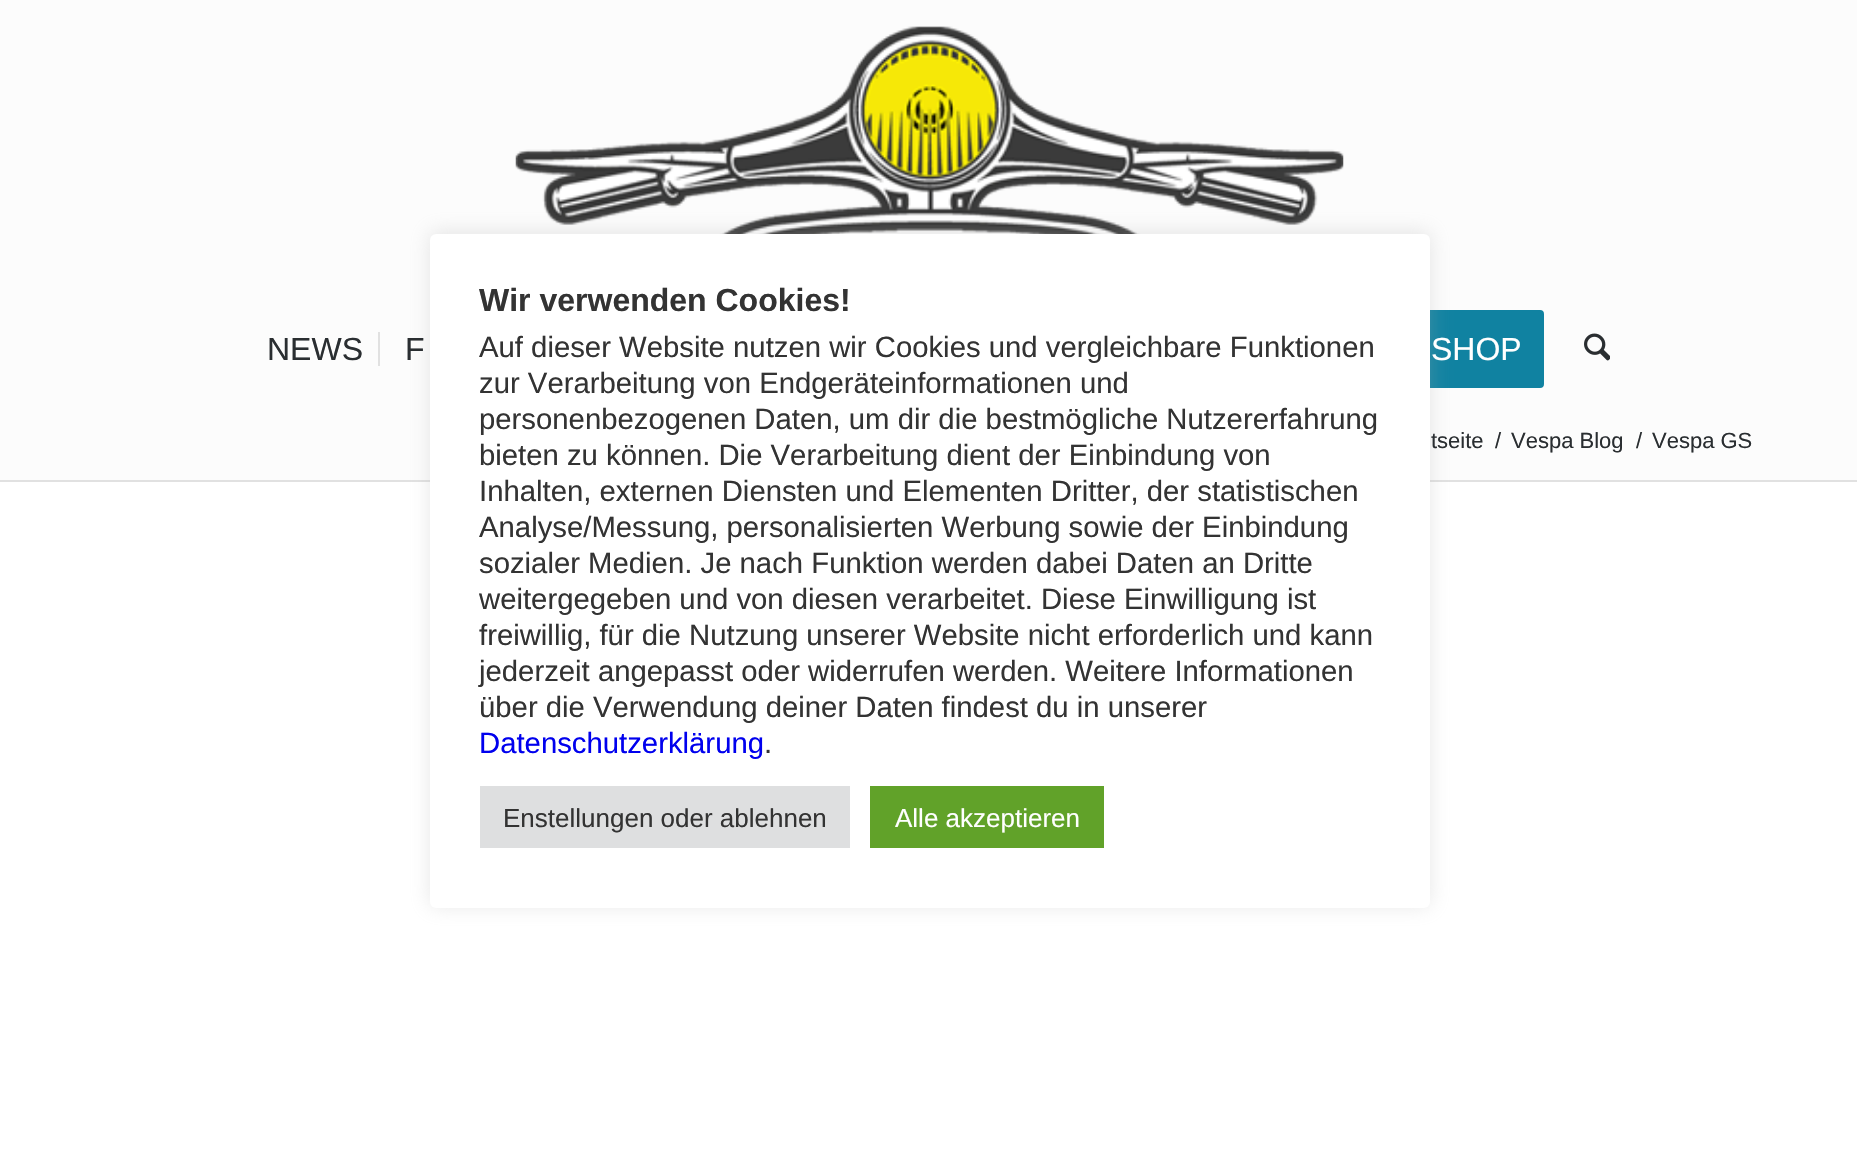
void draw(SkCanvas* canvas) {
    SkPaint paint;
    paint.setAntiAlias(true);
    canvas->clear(0xFFFCFCFC);
    canvas->drawImageRect(SkImages::DeferredFromEncodedData(SkData::MakeFromFileName("img1.png")), SkRect::MakeXYWH(515, 26, 829, 208), SkSamplingOptions());
    paint.setColor(0xFF1082A1);
    canvas->drawRoundRect(SkRect::MakeXYWH(1412, 312, 130, 74), 2, 2, paint);
    paint.setStyle(SkPaint::kStroke_Style);
    paint.setStrokeWidth(4);
    canvas->drawRoundRect(SkRect::MakeXYWH(1412, 312, 130, 74), 2, 2, paint);
    paint.setStyle(SkPaint::kFill_Style);
    paint.setColor(0xFFFFFFFF);
    canvas->drawRect(SkRect::MakeXYWH(0, 482, 1857, 680), paint);
    paint.setColor(0xFFE1E1E1);
    canvas->drawRect(SkRect::MakeXYWH(0, 480, 1857, 2), paint);
    paint.setColor(0x4DACABAB);
    paint.setMaskFilter(SkMaskFilter::MakeBlur(kNormal_SkBlurStyle, 10));
    canvas->drawRoundRect(SkRect::MakeXYWH(430, 232, 1000, 674), 6, 6, paint);
    paint.setMaskFilter(nullptr);
    paint.setColor(0xFFFFFFFF);
    canvas->drawRoundRect(SkRect::MakeXYWH(430, 234, 1000, 674), 6, 6, paint);
    SkFont font1(fontMgr->matchFamilyStyle("Liberation Sans", SkFontStyle::Bold()), 32);
    font1.setSubpixel(true);
    paint.setColor(0xFF333333);
    canvas->drawString("Wir verwenden Cookies!", 479, 311, font1, paint);
    SkFont font2(fontMgr->matchFamilyStyle("Liberation Sans", SkFontStyle::Normal()), 29.3f);
    font2.setSubpixel(true);
    canvas->drawString("Auf dieser Website nutzen wir Cookies und vergleichbare Funktionen", 479, 357, font2, paint);
    canvas->drawString("zur Verarbeitung von Endgeräteinformationen und", 479, 393, font2, paint);
    canvas->drawString("personenbezogenen Daten, um dir die bestmögliche Nutzererfahrung", 479, 429, font2, paint);
    canvas->drawString("bieten zu können. Die Verarbeitung dient der Einbindung von", 479, 465, font2, paint);
    canvas->drawString("Inhalten, externen Diensten und Elementen Dritter, der statistischen", 479, 501, font2, paint);
    canvas->drawString("Analyse/Messung, personalisierten Werbung sowie der Einbindung", 479, 537, font2, paint);
    canvas->drawString("sozialer Medien. Je nach Funktion werden dabei Daten an Dritte", 479, 573, font2, paint);
    canvas->drawString("weitergegeben und von diesen verarbeitet. Diese Einwilligung ist", 479, 609, font2, paint);
    canvas->drawString("freiwillig, für die Nutzung unserer Website nicht erforderlich und kann", 479, 645, font2, paint);
    canvas->drawString("jederzeit angepasst oder widerrufen werden. Weitere Informationen", 479, 681, font2, paint);
    canvas->drawString("über die Verwendung deiner Daten findest du in unserer", 479, 717, font2, paint);
    paint.setColor(0xFF0000EE);
    canvas->drawString("Datenschutzerklärung", 479, 753, font2, paint);
    paint.setColor(0xFF333333);
    canvas->drawString(".", 764, 753, font2, paint);
    paint.setColor(0xFFDEDFE0);
    canvas->drawRect(SkRect::MakeXYWH(480, 786, 370, 62), paint);
    SkFont font3(fontMgr->matchFamilyStyle("Liberation Sans", SkFontStyle::Normal()), 26);
    font3.setSubpixel(true);
    paint.setColor(0xFF333333);
    canvas->drawString("Enstellungen oder ablehnen", 503, 827, font3, paint);
    paint.setColor(0xFF61A229);
    canvas->drawRect(SkRect::MakeXYWH(870, 786, 234, 62), paint);
    paint.setColor(0xFFFFFFFF);
    canvas->drawString("Alle akzeptieren", 895, 827, font3, paint);
    SkFont font4(fontMgr->matchFamilyStyle("Liberation Sans", SkFontStyle::Normal()), 32);
    font4.setSubpixel(true);
    paint.setColor(0xFF2A2E31);
    canvas->drawString("NEWS", 267, 360, font4, paint);
    canvas->drawString("F", 405, 360, font4, paint);
    paint.setColor(0xFFE1E1E1);
    canvas->drawRect(SkRect::MakeXYWH(378, 332, 2, 34), paint);
    paint.setColor(0xFFFFFFFF);
    canvas->drawString("SHOP", 1431, 360, font4, paint);
    canvas->drawImageRect(SkImages::DeferredFromEncodedData(SkData::MakeFromFileName("img2.png")), SkRect::MakeXYWH(1584, 333, 26, 28), SkSamplingOptions());
    SkFont font5(fontMgr->matchFamilyStyle("Liberation Sans", SkFontStyle::Normal()), 22);
    font5.setSubpixel(true);
    paint.setColor(0xFF2A2E31);
    canvas->drawString("tseite", 1431, 448, font5, paint);
    canvas->drawString("/", 1495, 448, font5, paint);
    canvas->drawString("Vespa Blog", 1511, 448, font5, paint);
    canvas->drawString("/", 1636, 448, font5, paint);
    canvas->drawString("Vespa GS", 1652, 448, font5, paint);
}
